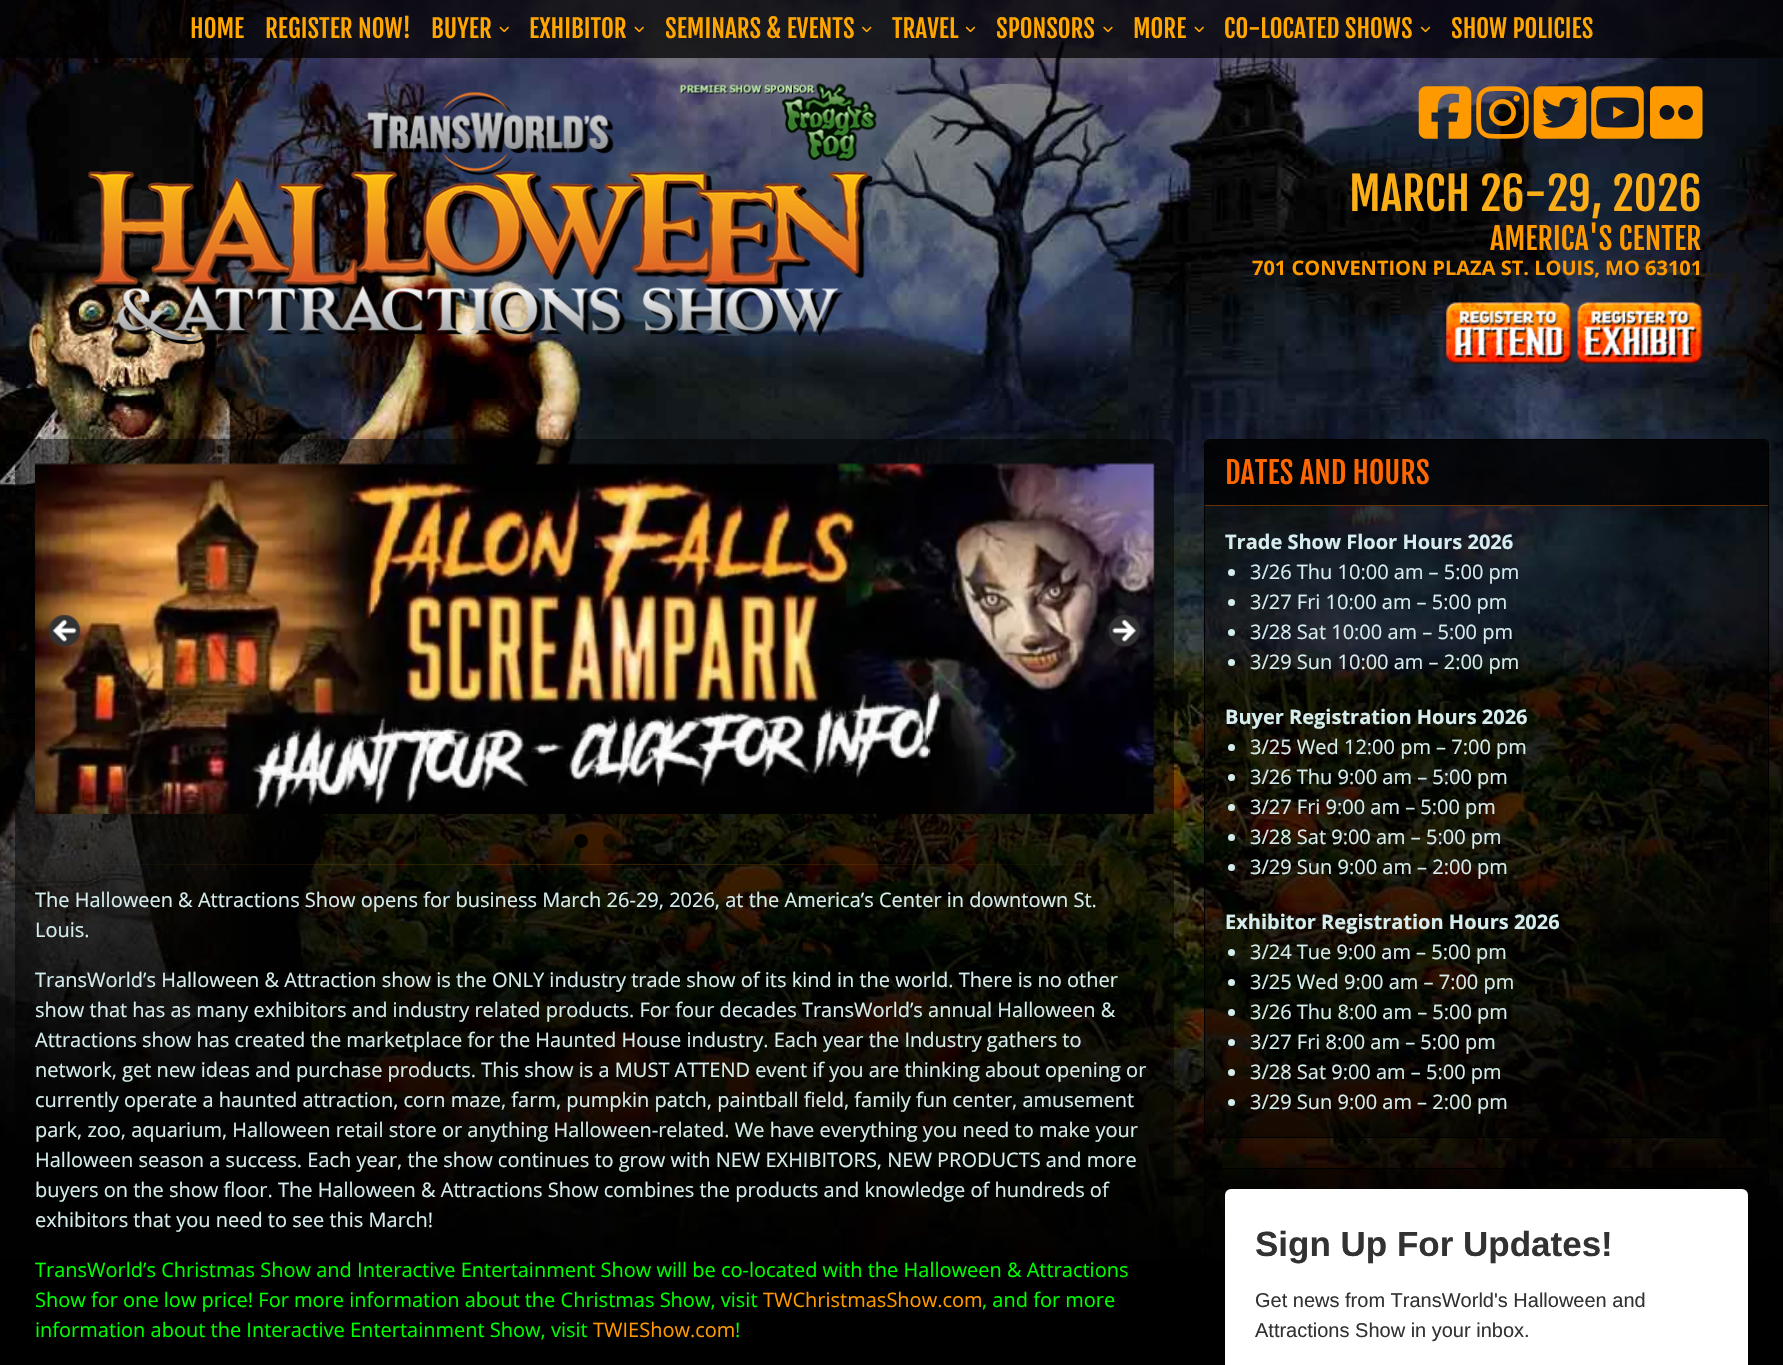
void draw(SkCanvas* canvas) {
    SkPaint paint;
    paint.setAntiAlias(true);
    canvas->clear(0xFF000000);
    canvas->drawImageRect(SkImages::DeferredFromEncodedData(SkData::MakeFromFileName("img1.png")), SkRect::MakeXYWH(0, 0, 1783, 1259), SkSamplingOptions());
    paint.setColor(0xBF000000);
    canvas->drawRect(SkRect::MakeXYWH(0, 0, 1783, 58), paint);
    SkFont font1(fontMgr->matchFamilyStyle("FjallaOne", SkFontStyle::Normal()), 25);
    font1.setSubpixel(true);
    paint.setColor(0xFFFFA600);
    canvas->drawString("HOME", 190, 38, font1, paint);
    canvas->drawString("REGISTER NOW!", 265, 38, font1, paint);
    canvas->drawString("BUYER", 431, 38, font1, paint);
    canvas->drawImageRect(SkImages::DeferredFromEncodedData(SkData::MakeFromFileName("img2.png")), SkRect::MakeXYWH(499, 26, 10, 7), SkSamplingOptions());
    canvas->drawString("EXHIBITOR", 529, 38, font1, paint);
    canvas->drawImageRect(SkImages::DeferredFromEncodedData(SkData::MakeFromFileName("img3.png")), SkRect::MakeXYWH(634, 26, 10, 7), SkSamplingOptions());
    canvas->drawString("SEMINARS & EVENTS", 665, 38, font1, paint);
    canvas->drawImageRect(SkImages::DeferredFromEncodedData(SkData::MakeFromFileName("img4.png")), SkRect::MakeXYWH(862, 26, 10, 7), SkSamplingOptions());
    canvas->drawString("TRAVEL", 892, 38, font1, paint);
    canvas->drawImageRect(SkImages::DeferredFromEncodedData(SkData::MakeFromFileName("img5.png")), SkRect::MakeXYWH(965, 26, 11, 7), SkSamplingOptions());
    canvas->drawString("SPONSORS", 996, 38, font1, paint);
    canvas->drawImageRect(SkImages::DeferredFromEncodedData(SkData::MakeFromFileName("img6.png")), SkRect::MakeXYWH(1103, 26, 10, 7), SkSamplingOptions());
    canvas->drawString("MORE", 1133, 38, font1, paint);
    canvas->drawImageRect(SkImages::DeferredFromEncodedData(SkData::MakeFromFileName("img7.png")), SkRect::MakeXYWH(1194, 26, 10, 7), SkSamplingOptions());
    canvas->drawString("CO-LOCATED SHOWS", 1224, 38, font1, paint);
    canvas->drawImageRect(SkImages::DeferredFromEncodedData(SkData::MakeFromFileName("img8.png")), SkRect::MakeXYWH(1420, 26, 11, 7), SkSamplingOptions());
    canvas->drawString("SHOW POLICIES", 1451, 38, font1, paint);
    canvas->drawImageRect(SkImages::DeferredFromEncodedData(SkData::MakeFromFileName("img9.png")), SkRect::MakeXYWH(88, 83, 789, 262), SkSamplingOptions());
    canvas->drawImageRect(SkImages::DeferredFromEncodedData(SkData::MakeFromFileName("img10.png")), SkRect::MakeXYWH(1418, 86, 54, 53), SkSamplingOptions());
    canvas->drawImageRect(SkImages::DeferredFromEncodedData(SkData::MakeFromFileName("img11.png")), SkRect::MakeXYWH(1476, 86, 53, 53), SkSamplingOptions());
    canvas->drawImageRect(SkImages::DeferredFromEncodedData(SkData::MakeFromFileName("img12.png")), SkRect::MakeXYWH(1533, 86, 54, 53), SkSamplingOptions());
    canvas->drawImageRect(SkImages::DeferredFromEncodedData(SkData::MakeFromFileName("img13.png")), SkRect::MakeXYWH(1591, 86, 53, 53), SkSamplingOptions());
    canvas->drawImageRect(SkImages::DeferredFromEncodedData(SkData::MakeFromFileName("img14.png")), SkRect::MakeXYWH(1650, 86, 53, 53), SkSamplingOptions());
    SkFont font2(fontMgr->matchFamilyStyle("FjallaOne", SkFontStyle::Normal()), 45);
    font2.setSubpixel(true);
    paint.setColor(0xFFFBAE17);
    canvas->drawString("MARCH 26-29, 2026", 1349, 211, font2, paint);
    SkFont font3(fontMgr->matchFamilyStyle("FjallaOne", SkFontStyle::Normal()), 30);
    font3.setSubpixel(true);
    paint.setColor(0xFFFF9900);
    canvas->drawString("AMERICA'S CENTER", 1490, 250, font3, paint);
    SkFont font4(fontMgr->matchFamilyStyle("Open Sans", SkFontStyle::Bold()), 20);
    font4.setSubpixel(true);
    canvas->drawString("701 CONVENTION PLAZA ST. LOUIS, MO 63101", 1252, 275, font4, paint);
    canvas->drawImageRect(SkImages::DeferredFromEncodedData(SkData::MakeFromFileName("img15.png")), SkRect::MakeXYWH(1446, 302, 126, 62), SkSamplingOptions());
    canvas->drawImageRect(SkImages::DeferredFromEncodedData(SkData::MakeFromFileName("img16.png")), SkRect::MakeXYWH(1577, 302, 126, 62), SkSamplingOptions());
    paint.setColor(0x80000000);
    canvas->drawRoundRect(SkRect::MakeXYWH(15, 439, 1159, 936), 10, 10, paint);
    canvas->drawImageRect(SkImages::DeferredFromEncodedData(SkData::MakeFromFileName("img17.png")), SkRect::MakeXYWH(35, 463, 1120, 351), SkSamplingOptions());
    canvas->drawImageRect(SkImages::DeferredFromEncodedData(SkData::MakeFromFileName("img18.png")), SkRect::MakeXYWH(48, 614, 33, 33), SkSamplingOptions());
    canvas->drawImageRect(SkImages::DeferredFromEncodedData(SkData::MakeFromFileName("img19.png")), SkRect::MakeXYWH(1108, 615, 32, 32), SkSamplingOptions());
    paint.setColor(0xE6000000);
    canvas->drawCircle(581, 841, 7, paint);
    paint.setColor(0x80000000);
    canvas->drawRoundRect(SkRect::MakeXYWH(603, 834, 13, 14), 6.5f, 6.5f, paint);
    {
        const SkColor colors[] = {0x00FF9600, 0x30FF9600, 0x00FF9600};
        const float stops[] = {0, 0.5f, 1};
        const SkPoint ends[] = {{35, 864}, {1154, 864}};
        paint.setShader(SkGradientShader::MakeLinear(ends, colors, stops, 3, SkTileMode::kClamp));
        paint.setAlpha(255);
    }
    canvas->drawRect(SkRect::MakeXYWH(99, 864, 992, 1), paint);
    SkFont font5(fontMgr->matchFamilyStyle("Open Sans", SkFontStyle::Normal()), 20);
    font5.setSubpixel(true);
    paint.setShader(nullptr);
    paint.setColor(0xFFD6EDED);
    canvas->drawString("The Halloween & Attractions Show opens for business March 26-29, 2026, at the America’s Center in downtown St.", 35, 907, font5, paint);
    canvas->drawString("Louis.", 35, 937, font5, paint);
    canvas->drawString("TransWorld’s Halloween & Attraction show is the ONLY industry trade show of its kind in the world. There is no other", 35, 987, font5, paint);
    canvas->drawString("show that has as many exhibitors and industry related products. For four decades TransWorld’s annual Halloween &", 35, 1017, font5, paint);
    canvas->drawString("Attractions show has created the marketplace for the Haunted House industry. Each year the Industry gathers to", 35, 1047, font5, paint);
    canvas->drawString("network, get new ideas and purchase products. This show is a MUST ATTEND event if you are thinking about opening or", 35, 1077, font5, paint);
    canvas->drawString("currently operate a haunted attraction, corn maze, farm, pumpkin patch, paintball field, family fun center, amusement", 35, 1107, font5, paint);
    canvas->drawString("park, zoo, aquarium, Halloween retail store or anything Halloween-related. We have everything you need to make your", 35, 1137, font5, paint);
    canvas->drawString("Halloween season a success. Each year, the show continues to grow with NEW EXHIBITORS, NEW PRODUCTS and more", 35, 1167, font5, paint);
    canvas->drawString("buyers on the show floor. The Halloween & Attractions Show combines the products and knowledge of hundreds of", 35, 1197, font5, paint);
    canvas->drawString("exhibitors that you need to see this March!", 35, 1227, font5, paint);
    paint.setColor(0xFF00FF00);
    canvas->drawString("TransWorld’s Christmas Show and Interactive Entertainment Show will be co-located with the Halloween & Attractions", 35, 1277, font5, paint);
    canvas->drawString("Show for one low price! For more information about the Christmas Show, visit", 35, 1307, font5, paint);
    paint.setColor(0xFFFF9900);
    canvas->drawString("TWChristmasShow.com", 763, 1307, font5, paint);
    paint.setColor(0xFF00FF00);
    canvas->drawString(", and for more", 982, 1307, font5, paint);
    canvas->drawString("information about the Interactive Entertainment Show, visit", 35, 1337, font5, paint);
    paint.setColor(0xFFFF9900);
    canvas->drawString("TWIEShow.com", 593, 1337, font5, paint);
    paint.setColor(0xFF00FF00);
    canvas->drawString("!", 735, 1337, font5, paint);
    paint.setColor(0x80000000);
    canvas->drawRoundRect(SkRect::MakeXYWH(1204.5f, 439.5f, 564, 698), 4.5f, 4.5f, paint);
    paint.setStyle(SkPaint::kStroke_Style);
    paint.setStrokeWidth(1);
    paint.setColor(0xFF000000);
    canvas->drawRoundRect(SkRect::MakeXYWH(1204.5f, 439.5f, 564, 698), 4.5f, 4.5f, paint);
    paint.setStyle(SkPaint::kFill_Style);
    paint.setColor(0xBF000000);
    canvas->drawPath(SkPathBuilder().moveTo(1211, 440).lineTo(1762, 440).cubicTo(1765.5f, 440, 1768, 442.5f, 1768, 446).lineTo(1768, 506).lineTo(1205, 506).lineTo(1205, 446).cubicTo(1205, 442.5f, 1207.5f, 440, 1211, 440).close().detach(), paint);
    paint.setColor(0xFF663300);
    canvas->drawRect(SkRect::MakeXYWH(1205, 505, 563, 1), paint);
    paint.setColor(0xFFFF6600);
    canvas->drawString("DATES AND HOURS", 1225, 484, font3, paint);
    paint.setColor(0xFFD6EDED);
    canvas->drawString("Trade Show Floor Hours 2026", 1225, 549, font4, paint);
    canvas->drawCircle(1231.5f, 572.5f, 3.5f, paint);
    canvas->drawString("3/26 Thu 10:00 am – 5:00 pm", 1250, 579, font5, paint);
    canvas->drawCircle(1231.5f, 602.5f, 3.5f, paint);
    canvas->drawString("3/27 Fri 10:00 am – 5:00 pm", 1250, 609, font5, paint);
    canvas->drawCircle(1231.5f, 632.5f, 3.5f, paint);
    canvas->drawString("3/28 Sat 10:00 am – 5:00 pm", 1250, 639, font5, paint);
    canvas->drawCircle(1231.5f, 662.5f, 3.5f, paint);
    canvas->drawString("3/29 Sun 10:00 am – 2:00 pm", 1250, 669, font5, paint);
    canvas->drawString("Buyer Registration Hours 2026", 1225, 724, font4, paint);
    canvas->drawCircle(1231.5f, 747.5f, 3.5f, paint);
    canvas->drawString("3/25 Wed 12:00 pm – 7:00 pm", 1250, 754, font5, paint);
    canvas->drawCircle(1231.5f, 777.5f, 3.5f, paint);
    canvas->drawString("3/26 Thu 9:00 am – 5:00 pm", 1250, 784, font5, paint);
    canvas->drawCircle(1231.5f, 807.5f, 3.5f, paint);
    canvas->drawString("3/27 Fri 9:00 am – 5:00 pm", 1250, 814, font5, paint);
    canvas->drawCircle(1231.5f, 837.5f, 3.5f, paint);
    canvas->drawString("3/28 Sat 9:00 am – 5:00 pm", 1250, 844, font5, paint);
    canvas->drawCircle(1231.5f, 867.5f, 3.5f, paint);
    canvas->drawString("3/29 Sun 9:00 am – 2:00 pm", 1250, 874, font5, paint);
    canvas->drawString("Exhibitor Registration Hours 2026", 1225, 929, font4, paint);
    canvas->drawCircle(1231.5f, 952.5f, 3.5f, paint);
    canvas->drawString("3/24 Tue 9:00 am – 5:00 pm", 1250, 959, font5, paint);
    canvas->drawCircle(1231.5f, 982.5f, 3.5f, paint);
    canvas->drawString("3/25 Wed 9:00 am – 7:00 pm", 1250, 989, font5, paint);
    canvas->drawCircle(1231.5f, 1012.5f, 3.5f, paint);
    canvas->drawString("3/26 Thu 8:00 am – 5:00 pm", 1250, 1019, font5, paint);
    canvas->drawCircle(1231.5f, 1042.5f, 3.5f, paint);
    canvas->drawString("3/27 Fri 8:00 am – 5:00 pm", 1250, 1049, font5, paint);
    canvas->drawCircle(1231.5f, 1072.5f, 3.5f, paint);
    canvas->drawString("3/28 Sat 9:00 am – 5:00 pm", 1250, 1079, font5, paint);
    canvas->drawCircle(1231.5f, 1102.5f, 3.5f, paint);
    canvas->drawString("3/29 Sun 9:00 am – 2:00 pm", 1250, 1109, font5, paint);
    paint.setColor(0x80000000);
    canvas->drawRoundRect(SkRect::MakeXYWH(1204.5f, 1168.5f, 564, 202), 4.5f, 4.5f, paint);
    paint.setStyle(SkPaint::kStroke_Style);
    paint.setColor(0xFF000000);
    canvas->drawRoundRect(SkRect::MakeXYWH(1204.5f, 1168.5f, 564, 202), 4.5f, 4.5f, paint);
    paint.setStyle(SkPaint::kFill_Style);
    paint.setColor(0xFFFFFFFF);
    canvas->drawRoundRect(SkRect::MakeXYWH(1225, 1189, 523, 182), 6, 6, paint);
    SkFont font6(fontMgr->matchFamilyStyle("Liberation Sans", SkFontStyle::Bold()), 35);
    font6.setSubpixel(true);
    paint.setColor(0xFF323232);
    canvas->drawString("Sign Up For Updates!", 1255, 1256, font6, paint);
    SkFont font7(fontMgr->matchFamilyStyle("Liberation Sans", SkFontStyle::Normal()), 20);
    font7.setSubpixel(true);
    canvas->drawString("Get news from TransWorld's Halloween and", 1255, 1307, font7, paint);
    canvas->drawString("Attractions Show in your inbox.", 1255, 1337, font7, paint);
}
